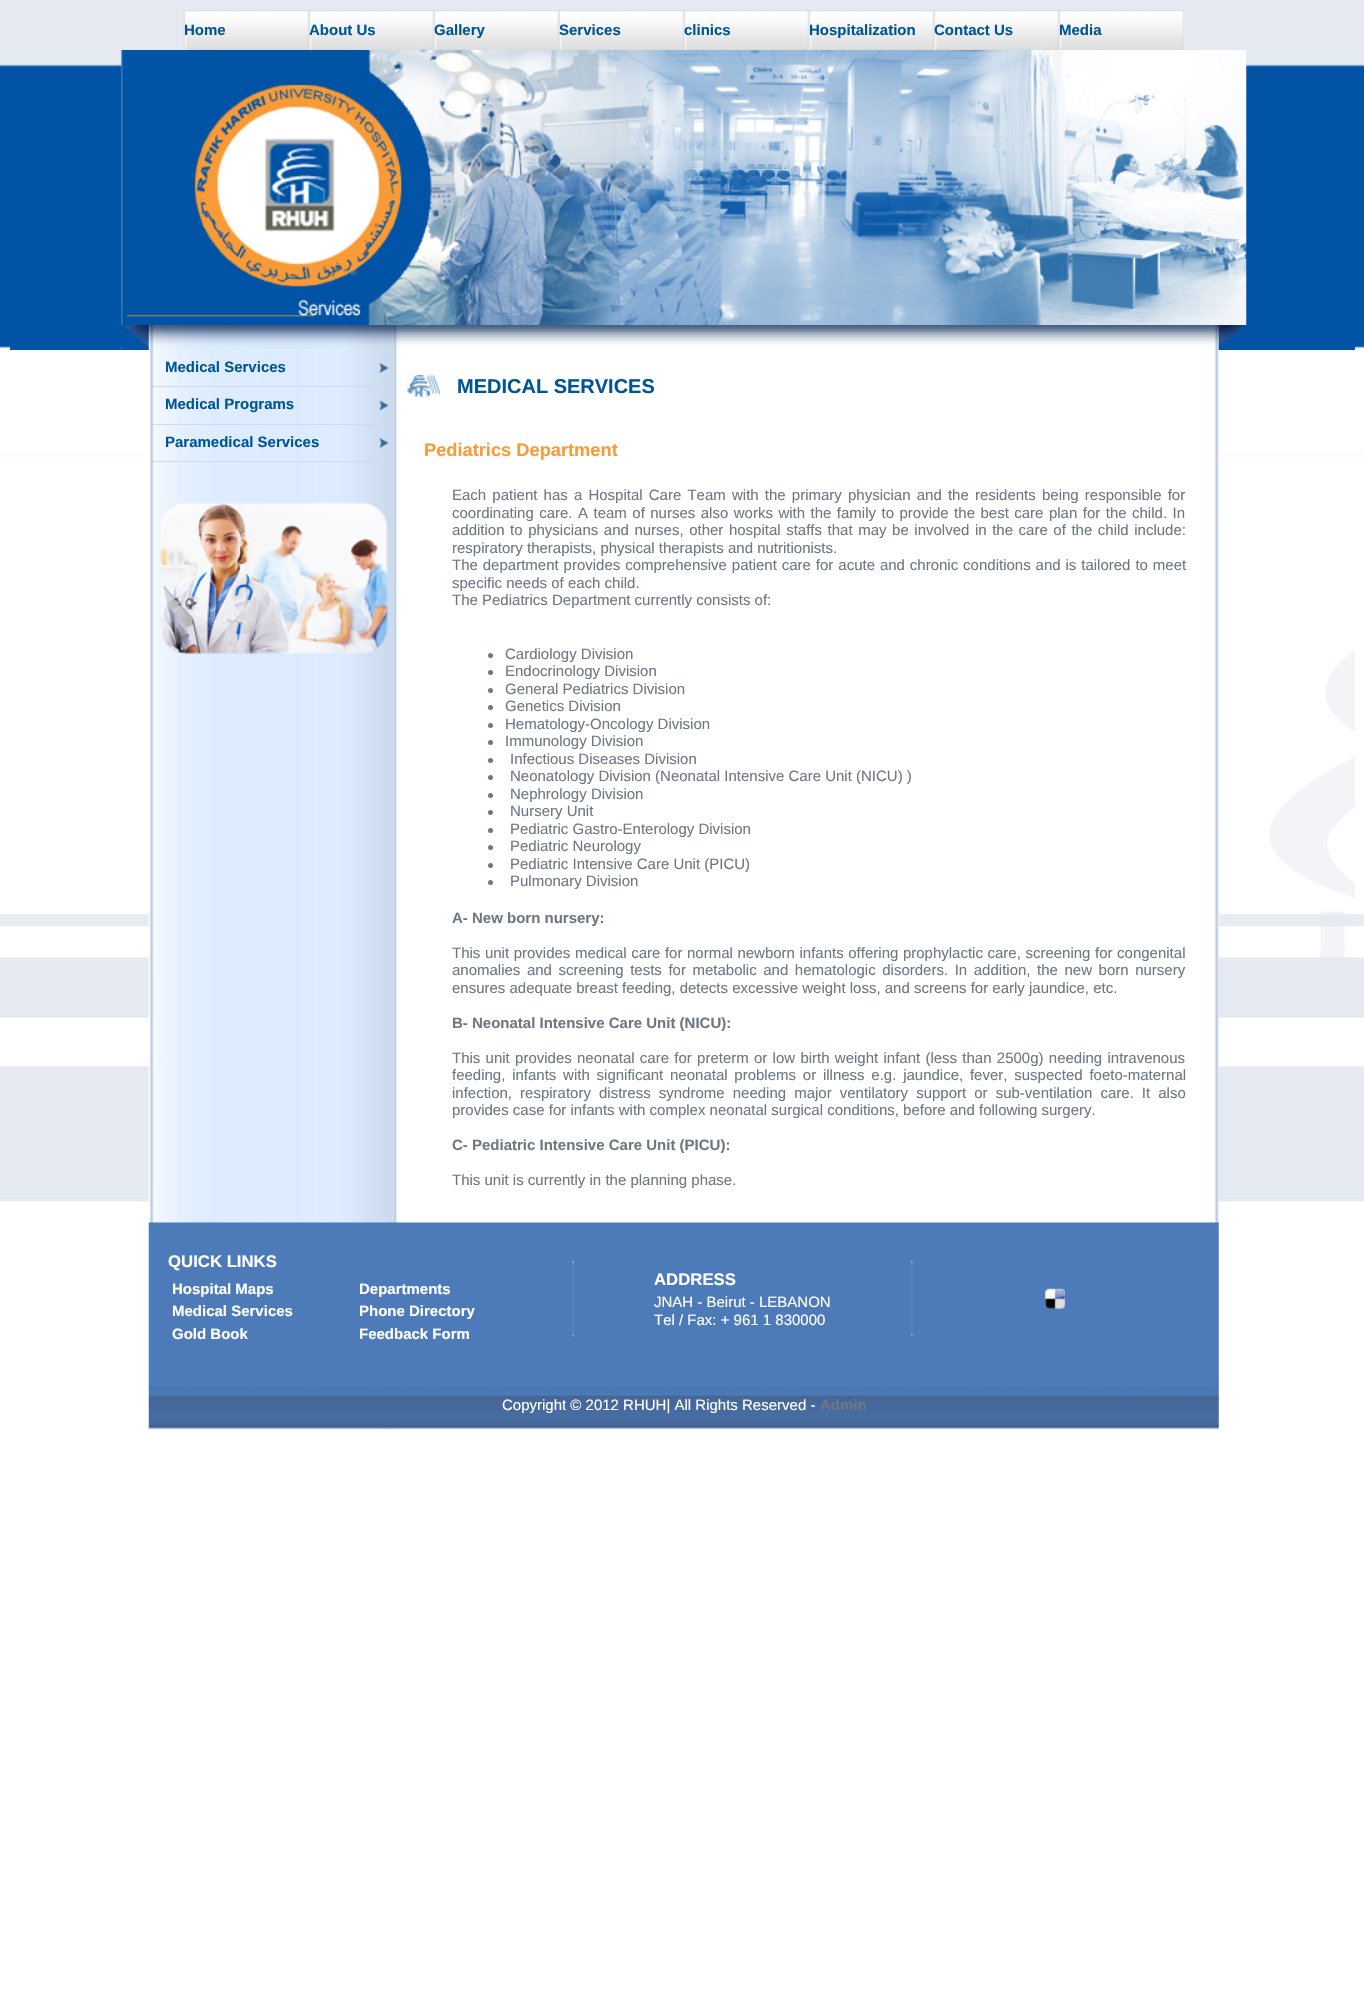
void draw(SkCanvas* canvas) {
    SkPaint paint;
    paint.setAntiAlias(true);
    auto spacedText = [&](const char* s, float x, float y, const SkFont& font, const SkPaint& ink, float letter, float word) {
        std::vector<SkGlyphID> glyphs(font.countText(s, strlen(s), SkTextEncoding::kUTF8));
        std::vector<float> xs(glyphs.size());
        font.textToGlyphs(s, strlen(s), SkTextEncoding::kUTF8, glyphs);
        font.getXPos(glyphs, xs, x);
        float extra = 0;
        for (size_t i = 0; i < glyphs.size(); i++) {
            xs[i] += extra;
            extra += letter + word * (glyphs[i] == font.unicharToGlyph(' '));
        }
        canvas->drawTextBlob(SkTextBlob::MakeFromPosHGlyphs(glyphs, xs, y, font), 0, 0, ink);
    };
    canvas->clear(0xFFFFFFFF);
    canvas->drawImageRect(SkImages::DeferredFromEncodedData(SkData::MakeFromFileName("img1.png")), SkRect::MakeXYWH(0, 0, 1364, 1202), SkSamplingOptions());
    canvas->drawImageRect(SkImages::DeferredFromEncodedData(SkData::MakeFromFileName("img2.png")), SkRect::MakeXYWH(1269, 649, 86, 309), SkSamplingOptions());
    canvas->drawImageRect(SkImages::DeferredFromEncodedData(SkData::MakeFromFileName("img3.png")), SkRect::MakeXYWH(183, 10, 126, 40), SkSamplingOptions());
    SkFont font1(fontMgr->matchFamilyStyle("Liberation Sans", SkFontStyle::Bold()), 15);
    font1.setSubpixel(true);
    paint.setColor(0xFF005595);
    canvas->drawString("Home", 184, 35, font1, paint);
    canvas->drawImageRect(SkImages::DeferredFromEncodedData(SkData::MakeFromFileName("img4.png")), SkRect::MakeXYWH(309, 10, 125, 40), SkSamplingOptions());
    canvas->drawString("About Us", 309, 35, font1, paint);
    canvas->drawImageRect(SkImages::DeferredFromEncodedData(SkData::MakeFromFileName("img4.png")), SkRect::MakeXYWH(434, 10, 125, 40), SkSamplingOptions());
    canvas->drawString("Gallery", 434, 35, font1, paint);
    canvas->drawImageRect(SkImages::DeferredFromEncodedData(SkData::MakeFromFileName("img5.png")), SkRect::MakeXYWH(559, 10, 125, 40), SkSamplingOptions());
    canvas->drawString("Services", 559, 35, font1, paint);
    canvas->drawImageRect(SkImages::DeferredFromEncodedData(SkData::MakeFromFileName("img6.png")), SkRect::MakeXYWH(684, 10, 125, 40), SkSamplingOptions());
    canvas->drawString("clinics", 684, 35, font1, paint);
    canvas->drawImageRect(SkImages::DeferredFromEncodedData(SkData::MakeFromFileName("img5.png")), SkRect::MakeXYWH(809, 10, 125, 40), SkSamplingOptions());
    canvas->drawString("Hospitalization", 809, 35, font1, paint);
    canvas->drawImageRect(SkImages::DeferredFromEncodedData(SkData::MakeFromFileName("img6.png")), SkRect::MakeXYWH(934, 10, 125, 40), SkSamplingOptions());
    canvas->drawString("Contact Us", 934, 35, font1, paint);
    canvas->drawImageRect(SkImages::DeferredFromEncodedData(SkData::MakeFromFileName("img5.png")), SkRect::MakeXYWH(1059, 10, 125, 40), SkSamplingOptions());
    canvas->drawString("Media", 1059, 35, font1, paint);
    canvas->drawImageRect(SkImages::DeferredFromEncodedData(SkData::MakeFromFileName("img7.png")), SkRect::MakeXYWH(121, 50, 1126, 275), SkSamplingOptions());
    paint.setColor(0xFF0153A5);
    canvas->drawRect(SkRect::MakeXYWH(10, 346, 111, 4), paint);
    canvas->drawImageRect(SkImages::DeferredFromEncodedData(SkData::MakeFromFileName("img8.png")), SkRect::MakeXYWH(121, 325, 1125, 25), SkSamplingOptions());
    canvas->drawRect(SkRect::MakeXYWH(1246, 346, 109, 4), paint);
    canvas->drawImageRect(SkImages::DeferredFromEncodedData(SkData::MakeFromFileName("img9.png")), SkRect::MakeXYWH(148, 350, 1071, 1079), SkSamplingOptions());
    paint.setColor(0xFFCDDBED);
    canvas->drawRect(SkRect::MakeXYWH(153, 386, 237, 1), paint);
    paint.setColor(0xFF005595);
    canvas->drawString("Medical Services", 165, 372, font1, paint);
    canvas->drawImageRect(SkImages::DeferredFromEncodedData(SkData::MakeFromFileName("img10.png")), SkRect::MakeXYWH(379, 362, 10, 12), SkSamplingOptions());
    paint.setColor(0xFFCDDBED);
    canvas->drawRect(SkRect::MakeXYWH(153, 424, 237, 1), paint);
    paint.setColor(0xFF005595);
    canvas->drawString("Medical Programs", 165, 409, font1, paint);
    canvas->drawImageRect(SkImages::DeferredFromEncodedData(SkData::MakeFromFileName("img11.png")), SkRect::MakeXYWH(379, 400, 10, 11), SkSamplingOptions());
    paint.setColor(0xFFCDDBED);
    canvas->drawRect(SkRect::MakeXYWH(153, 461, 237, 1), paint);
    paint.setColor(0xFF005595);
    canvas->drawString("Paramedical Services", 165, 447, font1, paint);
    canvas->drawImageRect(SkImages::DeferredFromEncodedData(SkData::MakeFromFileName("img10.png")), SkRect::MakeXYWH(379, 437, 10, 12), SkSamplingOptions());
    canvas->drawImageRect(SkImages::DeferredFromEncodedData(SkData::MakeFromFileName("img12.png")), SkRect::MakeXYWH(160, 502, 228, 152), SkSamplingOptions());
    canvas->drawImageRect(SkImages::DeferredFromEncodedData(SkData::MakeFromFileName("img13.png")), SkRect::MakeXYWH(406, 374, 35, 24), SkSamplingOptions());
    SkFont font2(fontMgr->matchFamilyStyle("Liberation Sans", SkFontStyle::Bold()), 20);
    font2.setSubpixel(true);
    canvas->drawString("MEDICAL SERVICES", 457, 393, font2, paint);
    SkFont font3(fontMgr->matchFamilyStyle("Liberation Sans", SkFontStyle::Bold()), 18.25f);
    font3.setSubpixel(true);
    paint.setColor(0xFFF99B37);
    canvas->drawString("Pediatrics Department", 424, 456, font3, paint);
    SkFont font4(fontMgr->matchFamilyStyle("Liberation Sans", SkFontStyle::Normal()), 15);
    font4.setSubpixel(true);
    paint.setColor(0xFF6F7783);
    spacedText("Each patient has a Hospital Care Team with the primary physician and the residents being responsible for", 452, 500, font4, paint, 0, 2);
    spacedText("coordinating care. A team of nurses also works with the family to provide the best care plan for the child. In", 452, 518, font4, paint, 0, 1.3f);
    spacedText("addition to physicians and nurses, other hospital staffs that may be involved in the care of the child include:", 452, 535, font4, paint, 0, 1.4f);
    canvas->drawString("respiratory therapists, physical therapists and nutritionists.", 452, 553, font4, paint);
    spacedText("The department provides comprehensive patient care for acute and chronic conditions and is tailored to meet", 452, 570, font4, paint, 0, 0.75f);
    canvas->drawString("specific needs of each child.", 452, 588, font4, paint);
    canvas->drawString("The Pediatrics Department currently consists of:", 452, 605, font4, paint);
    canvas->drawCircle(490.5f, 655.5f, 2.5f, paint);
    canvas->drawString("Cardiology Division", 505, 659, font4, paint);
    canvas->drawCircle(490.5f, 672.5f, 2.5f, paint);
    canvas->drawString("Endocrinology Division", 505, 676, font4, paint);
    canvas->drawCircle(490.5f, 690.5f, 2.5f, paint);
    canvas->drawString("General Pediatrics Division", 505, 694, font4, paint);
    canvas->drawCircle(490.5f, 707.5f, 2.5f, paint);
    canvas->drawString("Genetics Division", 505, 711, font4, paint);
    canvas->drawCircle(490.5f, 725.5f, 2.5f, paint);
    canvas->drawString("Hematology-Oncology Division", 505, 729, font4, paint);
    canvas->drawCircle(490.5f, 742.5f, 2.5f, paint);
    canvas->drawString("Immunology Division", 505, 746, font4, paint);
    canvas->drawCircle(490.5f, 760.5f, 2.5f, paint);
    canvas->drawString("Infectious Diseases Division", 510, 764, font4, paint);
    canvas->drawCircle(490.5f, 777.5f, 2.5f, paint);
    canvas->drawString("Neonatology Division (Neonatal Intensive Care Unit (NICU) )", 510, 781, font4, paint);
    canvas->drawCircle(490.5f, 795.5f, 2.5f, paint);
    canvas->drawString("Nephrology Division", 510, 799, font4, paint);
    canvas->drawCircle(490.5f, 812.5f, 2.5f, paint);
    canvas->drawString("Nursery Unit", 510, 816, font4, paint);
    canvas->drawCircle(490.5f, 830.5f, 2.5f, paint);
    canvas->drawString("Pediatric Gastro-Enterology Division", 510, 834, font4, paint);
    canvas->drawCircle(490.5f, 847.5f, 2.5f, paint);
    canvas->drawString("Pediatric Neurology", 510, 851, font4, paint);
    canvas->drawCircle(490.5f, 865.5f, 2.5f, paint);
    canvas->drawString("Pediatric Intensive Care Unit (PICU)", 510, 869, font4, paint);
    canvas->drawCircle(490.5f, 882.5f, 2.5f, paint);
    canvas->drawString("Pulmonary Division", 510, 886, font4, paint);
    canvas->drawString("A- New born nursery:", 452, 923, font1, paint);
    spacedText("This unit provides medical care for normal newborn infants offering prophylactic care, screening for congenital", 452, 958, font4, paint, 0, 0.4f);
    spacedText("anomalies and screening tests for metabolic and hematologic disorders. In addition, the new born nursery", 452, 975, font4, paint, 0, 2.4f);
    canvas->drawString("ensures adequate breast feeding, detects excessive weight loss, and screens for early jaundice, etc.", 452, 993, font4, paint);
    canvas->drawString("B- Neonatal Intensive Care Unit (NICU):", 452, 1028, font1, paint);
    spacedText("This unit provides neonatal care for preterm or low birth weight infant (less than 2500g) needing intravenous", 452, 1063, font4, paint, 0, 1.1f);
    spacedText("feeding, infants with significant neonatal problems or illness e.g. jaundice, fever, suspected foeto-maternal", 452, 1080, font4, paint, 0, 2.6f);
    spacedText("infection, respiratory distress syndrome needing major ventilatory support or sub-ventilation care. It also", 452, 1098, font4, paint, 0, 3.9f);
    canvas->drawString("provides case for infants with complex neonatal surgical conditions, before and following surgery.", 452, 1115, font4, paint);
    canvas->drawString("C- Pediatric Intensive Care Unit (PICU):", 452, 1150, font1, paint);
    canvas->drawString("This unit is currently in the planning phase.", 452, 1185, font4, paint);
    canvas->drawImageRect(SkImages::DeferredFromEncodedData(SkData::MakeFromFileName("img14.png")), SkRect::MakeXYWH(148, 1222, 1071, 207), SkSamplingOptions());
    SkFont font5(fontMgr->matchFamilyStyle("Liberation Sans", SkFontStyle::Bold()), 16.75f);
    font5.setSubpixel(true);
    paint.setColor(0xFFFFFFFF);
    canvas->drawString("QUICK LINKS", 168, 1267, font5, paint);
    canvas->drawString("Hospital Maps", 172, 1294, font1, paint);
    canvas->drawString("Departments", 359, 1294, font1, paint);
    canvas->drawString("Medical Services", 172, 1316, font1, paint);
    canvas->drawString("Phone Directory", 359, 1316, font1, paint);
    canvas->drawString("Gold Book", 172, 1339, font1, paint);
    canvas->drawString("Feedback Form", 359, 1339, font1, paint);
    canvas->drawImageRect(SkImages::DeferredFromEncodedData(SkData::MakeFromFileName("img15.png")), SkRect::MakeXYWH(572, 1261, 2, 76), SkSamplingOptions());
    canvas->drawString("ADDRESS", 654, 1285, font5, paint);
    canvas->drawString("JNAH - Beirut - LEBANON", 654, 1307, font4, paint);
    canvas->drawString("Tel / Fax: + 961 1 830000", 654, 1325, font4, paint);
    canvas->drawImageRect(SkImages::DeferredFromEncodedData(SkData::MakeFromFileName("img16.png")), SkRect::MakeXYWH(911, 1261, 2, 76), SkSamplingOptions());
    canvas->drawImageRect(SkImages::DeferredFromEncodedData(SkData::MakeFromFileName("img17.png")), SkRect::MakeXYWH(1045, 1288, 20, 21), SkSamplingOptions());
    canvas->drawString("Copyright © 2012 RHUH| All Rights Reserved -", 502, 1410, font4, paint);
    paint.setColor(0xFF6F7783);
    canvas->drawString("Admin", 820, 1410, font1, paint);
}
